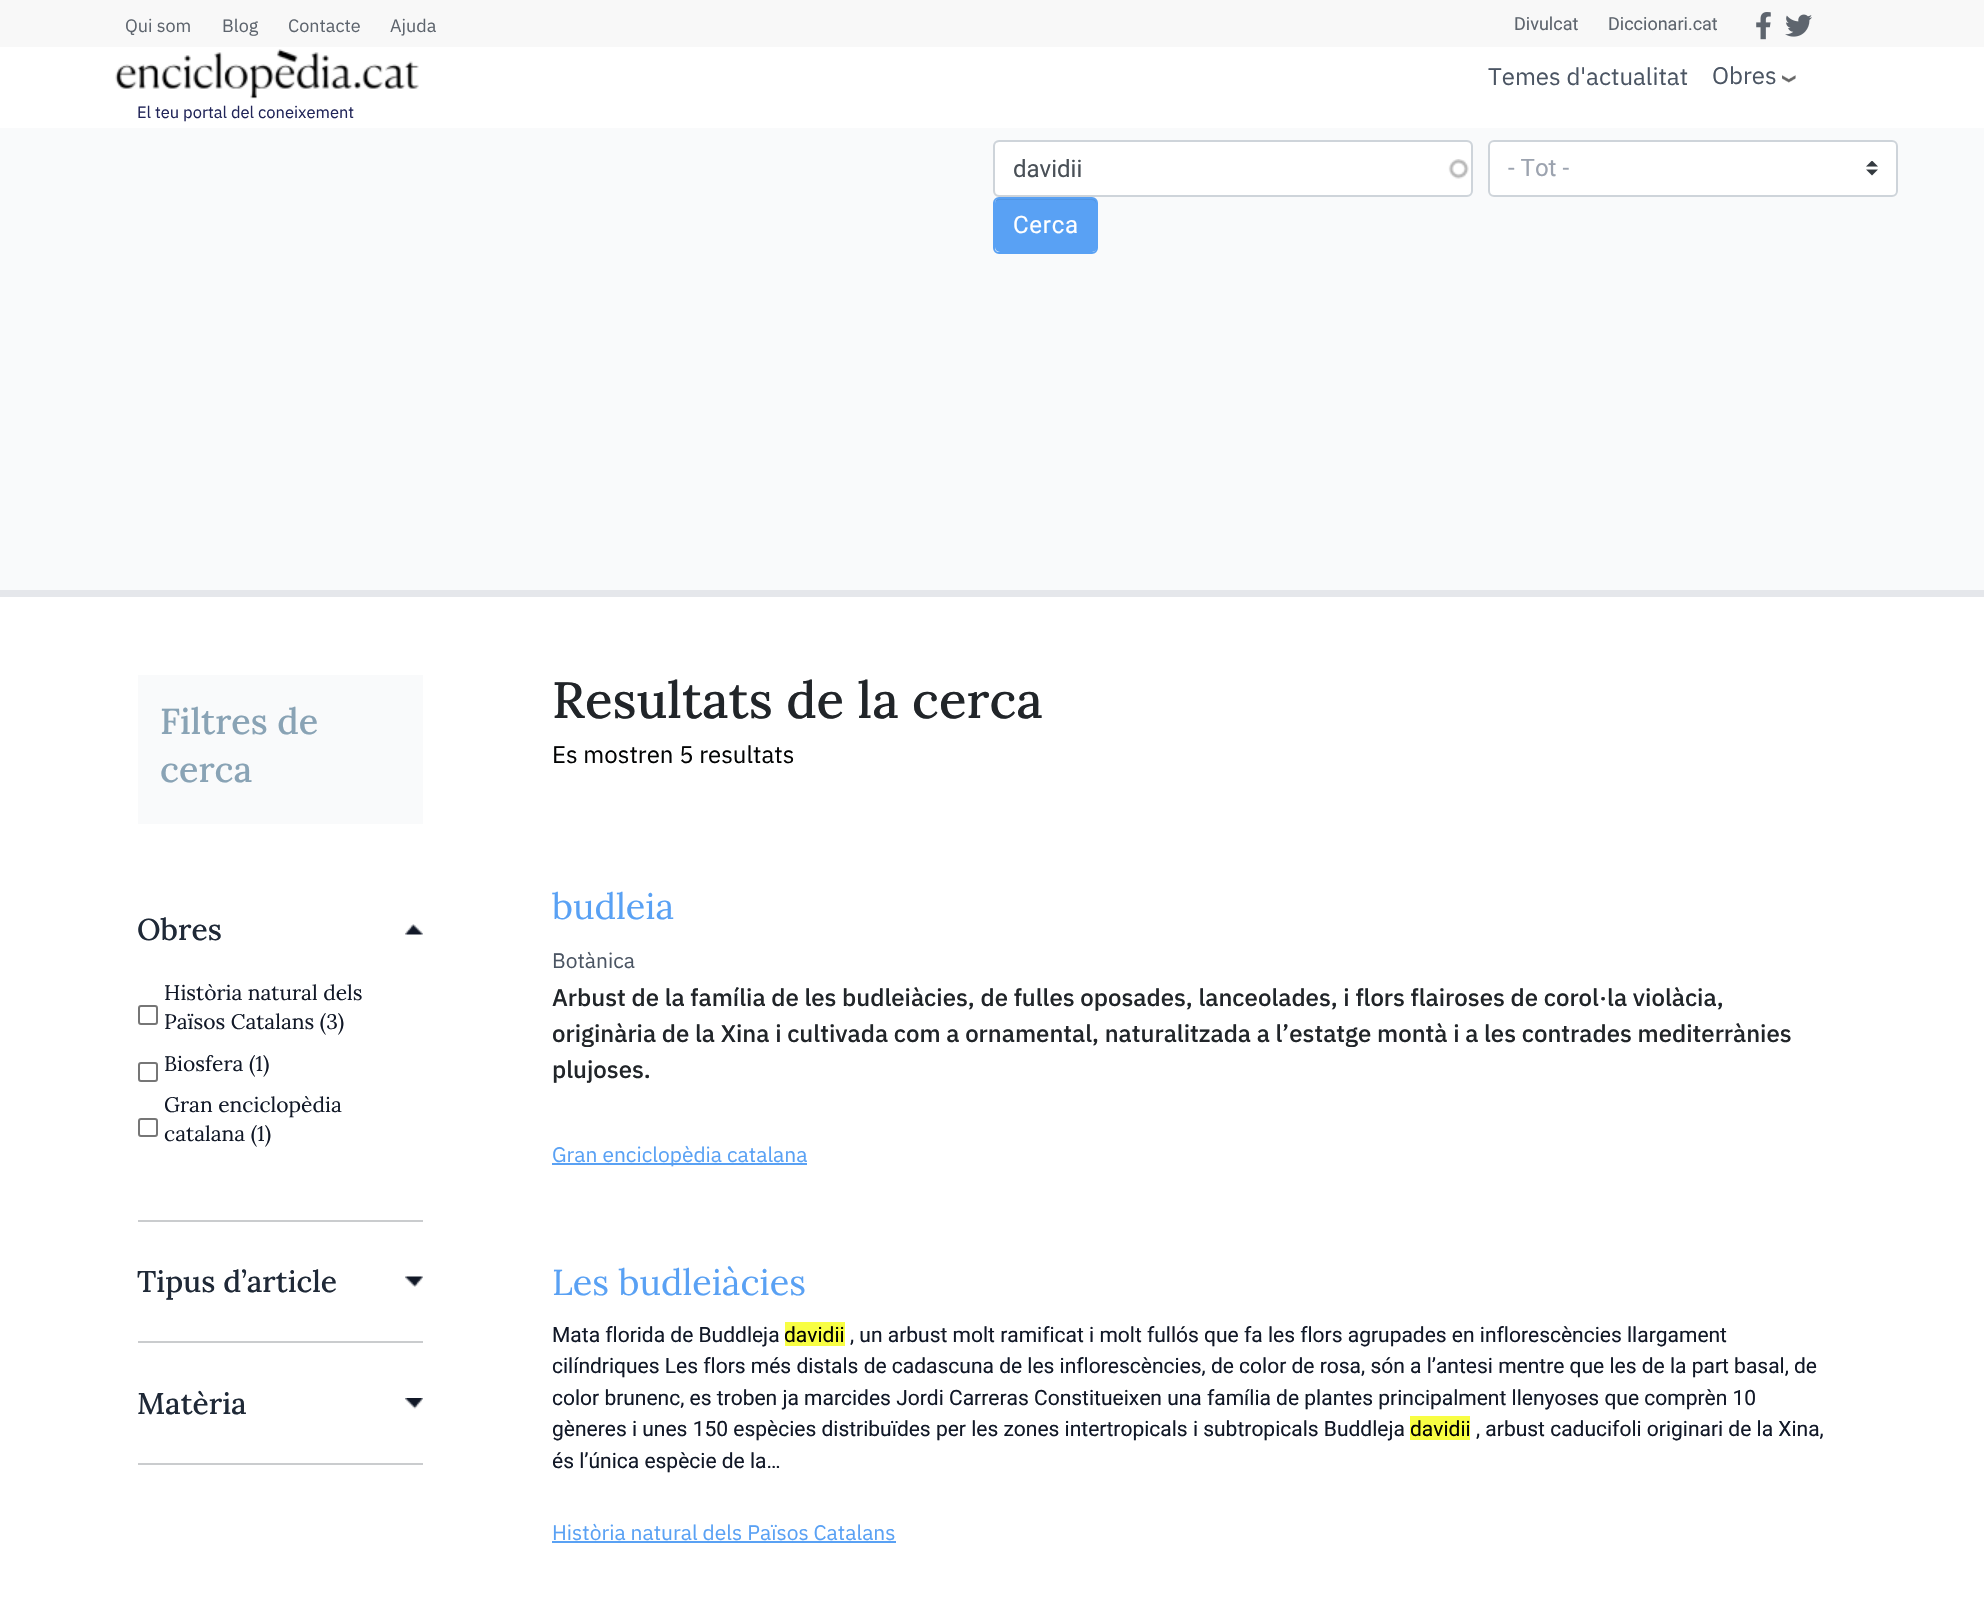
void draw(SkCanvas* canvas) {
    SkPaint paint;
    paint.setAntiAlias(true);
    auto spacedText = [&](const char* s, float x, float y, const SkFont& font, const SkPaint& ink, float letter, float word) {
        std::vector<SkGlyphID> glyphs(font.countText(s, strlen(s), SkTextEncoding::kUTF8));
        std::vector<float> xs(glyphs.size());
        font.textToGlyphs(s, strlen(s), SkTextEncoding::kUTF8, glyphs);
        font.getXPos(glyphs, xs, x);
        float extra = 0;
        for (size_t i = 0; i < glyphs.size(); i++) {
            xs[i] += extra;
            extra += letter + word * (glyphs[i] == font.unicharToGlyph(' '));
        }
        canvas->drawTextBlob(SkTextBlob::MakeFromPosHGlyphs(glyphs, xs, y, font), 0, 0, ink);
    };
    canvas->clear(0xFFFFFFFF);
    paint.setColor(0xFFF8F8F8);
    canvas->drawRect(SkRect::MakeXYWH(0, 0, 1984, 47), paint);
    SkFont font1(fontMgr->matchFamilyStyle("IBM Plex Sans", SkFontStyle::Normal()), 18);
    font1.setSubpixel(true);
    paint.setColor(0xFF5E656E);
    canvas->drawString("Qui som", 125, 32, font1, paint);
    canvas->drawString("Blog", 222, 32, font1, paint);
    canvas->drawString("Contacte", 288, 32, font1, paint);
    canvas->drawString("Ajuda", 390, 32, font1, paint);
    SkFont font2(fontMgr->matchFamilyStyle("Roboto", SkFontStyle::Normal()), 18);
    font2.setSubpixel(true);
    canvas->drawString("Divulcat", 1514, 30, font2, paint);
    canvas->drawString("Diccionari.cat", 1608, 30, font2, paint);
    canvas->drawImageRect(SkImages::DeferredFromEncodedData(SkData::MakeFromFileName("img1.png")), SkRect::MakeXYWH(1756, 12, 15, 28), SkSamplingOptions());
    canvas->drawImageRect(SkImages::DeferredFromEncodedData(SkData::MakeFromFileName("img2.png")), SkRect::MakeXYWH(1785, 14, 27, 23), SkSamplingOptions());
    SkFont font3(fontMgr->matchFamilyStyle("IBM Plex Sans", SkFontStyle::Normal()), 24);
    font3.setSubpixel(true);
    paint.setColor(0xFF4B5563);
    canvas->drawString("Temes d'actualitat", 1488, 85, font3, paint);
    canvas->drawString("Obres", 1712, 84, font3, paint);
    canvas->drawImageRect(SkImages::DeferredFromEncodedData(SkData::MakeFromFileName("img3.png")), SkRect::MakeXYWH(1782, 75, 14, 8), SkSamplingOptions());
    canvas->drawImageRect(SkImages::DeferredFromEncodedData(SkData::MakeFromFileName("img4.png")), SkRect::MakeXYWH(115, 49, 304, 50), SkSamplingOptions());
    SkFont font4(fontMgr->matchFamilyStyle("IBM Plex Sans", SkFontStyle::Normal()), 16.5f);
    font4.setSubpixel(true);
    paint.setColor(0xFF212559);
    canvas->drawString("El teu portal del coneixement", 137, 118, font4, paint);
    paint.setColor(0xFFF9FAFB);
    canvas->drawRect(SkRect::MakeXYWH(0, 128, 1984, 462), paint);
    paint.setColor(0xFFE5E7EB);
    canvas->drawRect(SkRect::MakeXYWH(0, 590, 1984, 7), paint);
    paint.setColor(0xFFFFFFFF);
    canvas->drawRoundRect(SkRect::MakeXYWH(995, 141, 477, 54), 5, 5, paint);
    canvas->drawImageRect(SkImages::DeferredFromEncodedData(SkData::MakeFromFileName("img5.png")), SkRect::MakeXYWH(1448, 159, 21, 20), SkSamplingOptions());
    paint.setColor(0x12000000);
    canvas->drawPath(SkPathBuilder().moveTo(999, 142).lineTo(1467, 142).cubicTo(1469, 142, 1472, 145, 1472, 147).lineTo(1472, 146).cubicTo(1472, 143, 1470, 141, 1467, 141).lineTo(1000, 141).cubicTo(998, 141, 996, 142, 995, 144).cubicTo(996, 143, 998, 142, 999, 142).close().detach(), paint);
    paint.setStyle(SkPaint::kStroke_Style);
    paint.setStrokeWidth(2);
    paint.setColor(0xFFCED4DA);
    canvas->drawRoundRect(SkRect::MakeXYWH(994, 141, 478, 55), 5, 5, paint);
    SkFont font5(fontMgr->matchFamilyStyle("Roboto", SkFontStyle::Normal()), 24);
    font5.setSubpixel(true);
    paint.setStyle(SkPaint::kFill_Style);
    paint.setColor(0xFF495057);
    canvas->drawString("davidii", 1013, 177, font5, paint);
    paint.setColor(0xFFFFFFFF);
    canvas->drawRoundRect(SkRect::MakeXYWH(1488, 140, 410, 57), 6, 6, paint);
    canvas->drawImageRect(SkImages::DeferredFromEncodedData(SkData::MakeFromFileName("img6.png")), SkRect::MakeXYWH(1866, 161, 12, 15), SkSamplingOptions());
    paint.setStyle(SkPaint::kStroke_Style);
    paint.setColor(0xFFCED4DA);
    canvas->drawRoundRect(SkRect::MakeXYWH(1489, 141, 408, 55), 5, 5, paint);
    paint.setStyle(SkPaint::kFill_Style);
    paint.setColor(0xFF9CA3AF);
    canvas->drawString("- Tot -", 1508, 176, font5, paint);
    paint.setColor(0xFF59A1F4);
    canvas->drawRoundRect(SkRect::MakeXYWH(995, 198, 102, 54), 5, 5, paint);
    paint.setColor(0x12000000);
    canvas->drawPath(SkPathBuilder().moveTo(999, 200).lineTo(1092, 200).cubicTo(1098, 200, 1096, 209, 1096, 212).lineTo(1096, 250).cubicTo(1097, 249, 1097, 248, 1097, 247).lineTo(1097, 203).cubicTo(1097, 200, 1095, 198, 1092, 198).lineTo(1000, 198).cubicTo(998, 198, 996, 200, 995, 202).cubicTo(996, 201, 998, 200, 999, 200).close().detach(), paint);
    paint.setStyle(SkPaint::kStroke_Style);
    paint.setColor(0xFF59A1F4);
    canvas->drawRoundRect(SkRect::MakeXYWH(994, 198, 103, 55), 5, 5, paint);
    paint.setStyle(SkPaint::kFill_Style);
    paint.setColor(0xFFFFFFFF);
    spacedText("Cerca", 1013, 233, font5, paint, 0.75f, 0);
    paint.setColor(0xFFF9FAFB);
    canvas->drawRect(SkRect::MakeXYWH(138, 675, 285, 149), paint);
    SkFont font6(fontMgr->matchFamilyStyle("Lora", SkFontStyle(500, SkFontStyle::kNormal_Width, SkFontStyle::kUpright_Slant)), 36);
    font6.setSubpixel(true);
    paint.setColor(0xFF89A3B5);
    canvas->drawString("Filtres de", 160, 734, font6, paint);
    canvas->drawString("cerca", 160, 782, font6, paint);
    paint.setColor(0xFFCACCCE);
    canvas->drawRect(SkRect::MakeXYWH(138, 1220, 285, 2), paint);
    canvas->drawImageRect(SkImages::DeferredFromEncodedData(SkData::MakeFromFileName("img7.png")), SkRect::MakeXYWH(405, 924, 18, 11), SkSamplingOptions());
    SkFont font7(fontMgr->matchFamilyStyle("Lora", SkFontStyle(500, SkFontStyle::kNormal_Width, SkFontStyle::kUpright_Slant)), 30);
    font7.setSubpixel(true);
    paint.setColor(0xFF1F2937);
    canvas->drawString("Obres", 137, 940, font7, paint);
    paint.setStyle(SkPaint::kStroke_Style);
    paint.setColor(0xFF767676);
    canvas->drawRoundRect(SkRect::MakeXYWH(139, 1006, 18, 18), 2, 2, paint);
    SkFont font8(fontMgr->matchFamilyStyle("Lora", SkFontStyle::Normal()), 21);
    font8.setSubpixel(true);
    paint.setStyle(SkPaint::kFill_Style);
    paint.setColor(0xFF111827);
    canvas->drawString("Història natural dels", 164, 1000, font8, paint);
    canvas->drawString("Països Catalans (3)", 164, 1029, font8, paint);
    paint.setStyle(SkPaint::kStroke_Style);
    paint.setColor(0xFF767676);
    canvas->drawRoundRect(SkRect::MakeXYWH(139, 1063, 18, 18), 2, 2, paint);
    paint.setStyle(SkPaint::kFill_Style);
    paint.setColor(0xFF111827);
    canvas->drawString("Biosfera (1)", 164, 1071, font8, paint);
    paint.setStyle(SkPaint::kStroke_Style);
    paint.setColor(0xFF767676);
    canvas->drawRoundRect(SkRect::MakeXYWH(139, 1119, 18, 17), 2, 2, paint);
    paint.setStyle(SkPaint::kFill_Style);
    paint.setColor(0xFF111827);
    canvas->drawString("Gran enciclopèdia", 164, 1112, font8, paint);
    canvas->drawString("catalana (1)", 164, 1141, font8, paint);
    paint.setColor(0xFFCACCCE);
    canvas->drawRect(SkRect::MakeXYWH(138, 1341, 285, 2), paint);
    canvas->drawImageRect(SkImages::DeferredFromEncodedData(SkData::MakeFromFileName("img8.png")), SkRect::MakeXYWH(405, 1276, 18, 11), SkSamplingOptions());
    paint.setColor(0xFF1F2937);
    canvas->drawString("Tipus d’article", 137, 1292, font7, paint);
    paint.setColor(0xFFCACCCE);
    canvas->drawRect(SkRect::MakeXYWH(138, 1463, 285, 2), paint);
    canvas->drawImageRect(SkImages::DeferredFromEncodedData(SkData::MakeFromFileName("img9.png")), SkRect::MakeXYWH(405, 1398, 18, 11), SkSamplingOptions());
    paint.setColor(0xFF1F2937);
    canvas->drawString("Matèria", 137, 1414, font7, paint);
    SkFont font9(fontMgr->matchFamilyStyle("Lora", SkFontStyle(500, SkFontStyle::kNormal_Width, SkFontStyle::kUpright_Slant)), 51);
    font9.setSubpixel(true);
    paint.setColor(0xFF212529);
    canvas->drawString("Resultats de la cerca", 552, 718, font9, paint);
    paint.setColor(0xFF020303);
    canvas->drawString("Es mostren 5 resultats", 552, 763, font3, paint);
    SkFont font10(fontMgr->matchFamilyStyle("Lora", SkFontStyle::Normal()), 36);
    font10.setSubpixel(true);
    paint.setColor(0xFF59A1F4);
    canvas->drawString("budleia", 552, 919, font10, paint);
    SkFont font11(fontMgr->matchFamilyStyle("IBM Plex Sans", SkFontStyle::Normal()), 21);
    font11.setSubpixel(true);
    paint.setColor(0xFF4B5563);
    canvas->drawString("Botànica", 552, 968, font11, paint);
    SkFont font12(fontMgr->matchFamilyStyle("IBM Plex Sans", SkFontStyle(500, SkFontStyle::kNormal_Width, SkFontStyle::kUpright_Slant)), 24);
    font12.setSubpixel(true);
    paint.setColor(0xFF212529);
    canvas->drawString("Arbust de la família de les budleiàcies, de fulles oposades, lanceolades, i flors flairoses de corol·la violàcia,", 552, 1006, font12, paint);
    canvas->drawString("originària de la Xina i cultivada com a ornamental, naturalitzada a l’estatge montà i a les contrades mediterrànies", 552, 1042, font12, paint);
    canvas->drawString("plujoses.", 552, 1078, font12, paint);
    paint.setColor(0xFF59A1F4);
    canvas->drawRect(SkRect::MakeXYWH(552, 1163, 255, 2), paint);
    canvas->drawString("Gran enciclopèdia catalana", 552, 1162, font11, paint);
    canvas->drawString("Les budleiàcies", 552, 1295, font10, paint);
    SkFont font13(fontMgr->matchFamilyStyle("Roboto", SkFontStyle::Normal()), 21);
    font13.setSubpixel(true);
    paint.setColor(0xFF111827);
    canvas->drawString("Mata florida de Buddleja", 552, 1342, font13, paint);
    paint.setColor(0xFFF8FE43);
    canvas->drawRect(SkRect::MakeXYWH(785, 1322, 60, 24), paint);
    paint.setColor(0xFF020303);
    canvas->drawString("davidii", 784, 1342, font13, paint);
    paint.setColor(0xFF111827);
    canvas->drawString(", un arbust molt ramificat i molt fullós que fa les flors agrupades en inflorescències llargament", 850, 1342, font13, paint);
    canvas->drawString("cilíndriques Les flors més distals de cadascuna de les inflorescències, de color de rosa, són a l’antesi mentre que les de la part basal, de", 552, 1373, font13, paint);
    canvas->drawString("color brunenc, es troben ja marcides Jordi Carreras Constitueixen una família de plantes principalment llenyoses que comprèn 10", 552, 1405, font13, paint);
    canvas->drawString("gèneres i unes 150 espècies distribuïdes per les zones intertropicals i subtropicals Buddleja", 552, 1436, font13, paint);
    paint.setColor(0xFFF8FE43);
    canvas->drawRect(SkRect::MakeXYWH(1410, 1416, 60, 24), paint);
    paint.setColor(0xFF020303);
    canvas->drawString("davidii", 1410, 1436, font13, paint);
    paint.setColor(0xFF111827);
    canvas->drawString(", arbust caducifoli originari de la Xina,", 1476, 1436, font13, paint);
    canvas->drawString("és l’única espècie de la…", 552, 1468, font13, paint);
    paint.setColor(0xFF59A1F4);
    canvas->drawString("Història natural dels Països Catalans", 552, 1540, font11, paint);
    canvas->drawRect(SkRect::MakeXYWH(552, 1541, 344, 2), paint);
}
